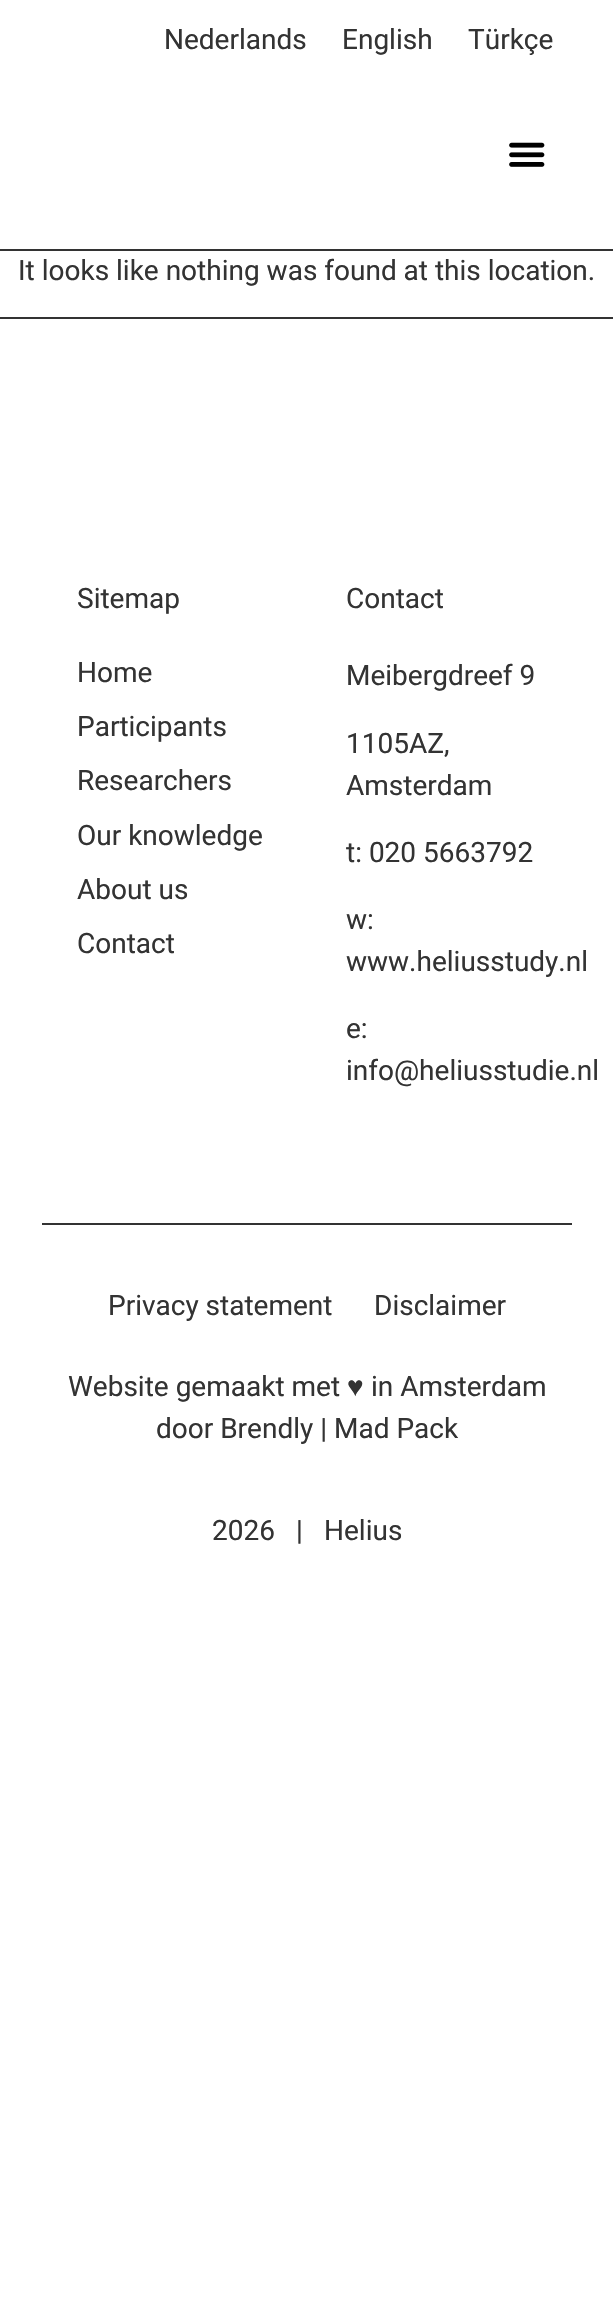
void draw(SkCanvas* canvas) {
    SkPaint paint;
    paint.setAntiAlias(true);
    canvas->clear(0xFFFFFFFF);
    SkFont font1(fontMgr->matchFamilyStyle("Roboto", SkFontStyle::Normal()), 28);
    font1.setSubpixel(true);
    paint.setColor(0xFF333333);
    canvas->drawString("Nederlands", 164, 49, font1, paint);
    canvas->drawString("English", 342, 49, font1, paint);
    canvas->drawString("Türkçe", 468, 49, font1, paint);
    canvas->drawRect(SkRect::MakeXYWH(0, 249, 613, 2), paint);
    canvas->drawImageRect(SkImages::DeferredFromEncodedData(SkData::MakeFromFileName("img1.png")), SkRect::MakeXYWH(509, 142, 36, 25), SkSamplingOptions());
    canvas->drawString("It looks like nothing was found at this location.", 18, 280, font1, paint);
    canvas->drawRect(SkRect::MakeXYWH(0, 317, 613, 2), paint);
    canvas->drawString("Sitemap", 77, 608, font1, paint);
    canvas->drawString("Home", 77, 682, font1, paint);
    canvas->drawString("Participants", 77, 736, font1, paint);
    canvas->drawString("Researchers", 77, 790, font1, paint);
    canvas->drawString("Our knowledge", 77, 845, font1, paint);
    canvas->drawString("About us", 77, 899, font1, paint);
    canvas->drawString("Contact", 77, 953, font1, paint);
    canvas->drawString("Contact", 346, 608, font1, paint);
    canvas->drawString("Meibergdreef 9", 346, 685, font1, paint);
    canvas->drawString("1105AZ,", 346, 753, font1, paint);
    canvas->drawString("Amsterdam", 346, 795, font1, paint);
    canvas->drawString("t: 020 5663792", 346, 862, font1, paint);
    canvas->drawString("w:", 346, 929, font1, paint);
    canvas->drawString("www.heliusstudy.nl", 346, 971, font1, paint);
    canvas->drawString("e:", 346, 1038, font1, paint);
    canvas->drawString("info@heliusstudie.nl", 346, 1080, font1, paint);
    canvas->drawRect(SkRect::MakeXYWH(42, 1223, 530, 2), paint);
    canvas->drawString("Privacy statement", 108, 1315, font1, paint);
    canvas->drawString("Disclaimer", 374, 1315, font1, paint);
    canvas->drawString("Website gemaakt met", 68, 1396, font1, paint);
    SkFont font2(fontMgr->matchFamilyStyle("Liberation Sans", SkFontStyle::Normal()), 28);
    font2.setSubpixel(true);
    canvas->drawString("♥", 347, 1396, font2, paint);
    canvas->drawString("in Amsterdam", 371, 1396, font1, paint);
    canvas->drawString("door Brendly | Mad Pack", 156, 1438, font1, paint);
    canvas->drawString("2026", 212, 1540, font1, paint);
    canvas->drawString("|", 296, 1540, font1, paint);
    canvas->drawString("Helius", 324, 1540, font1, paint);
}
